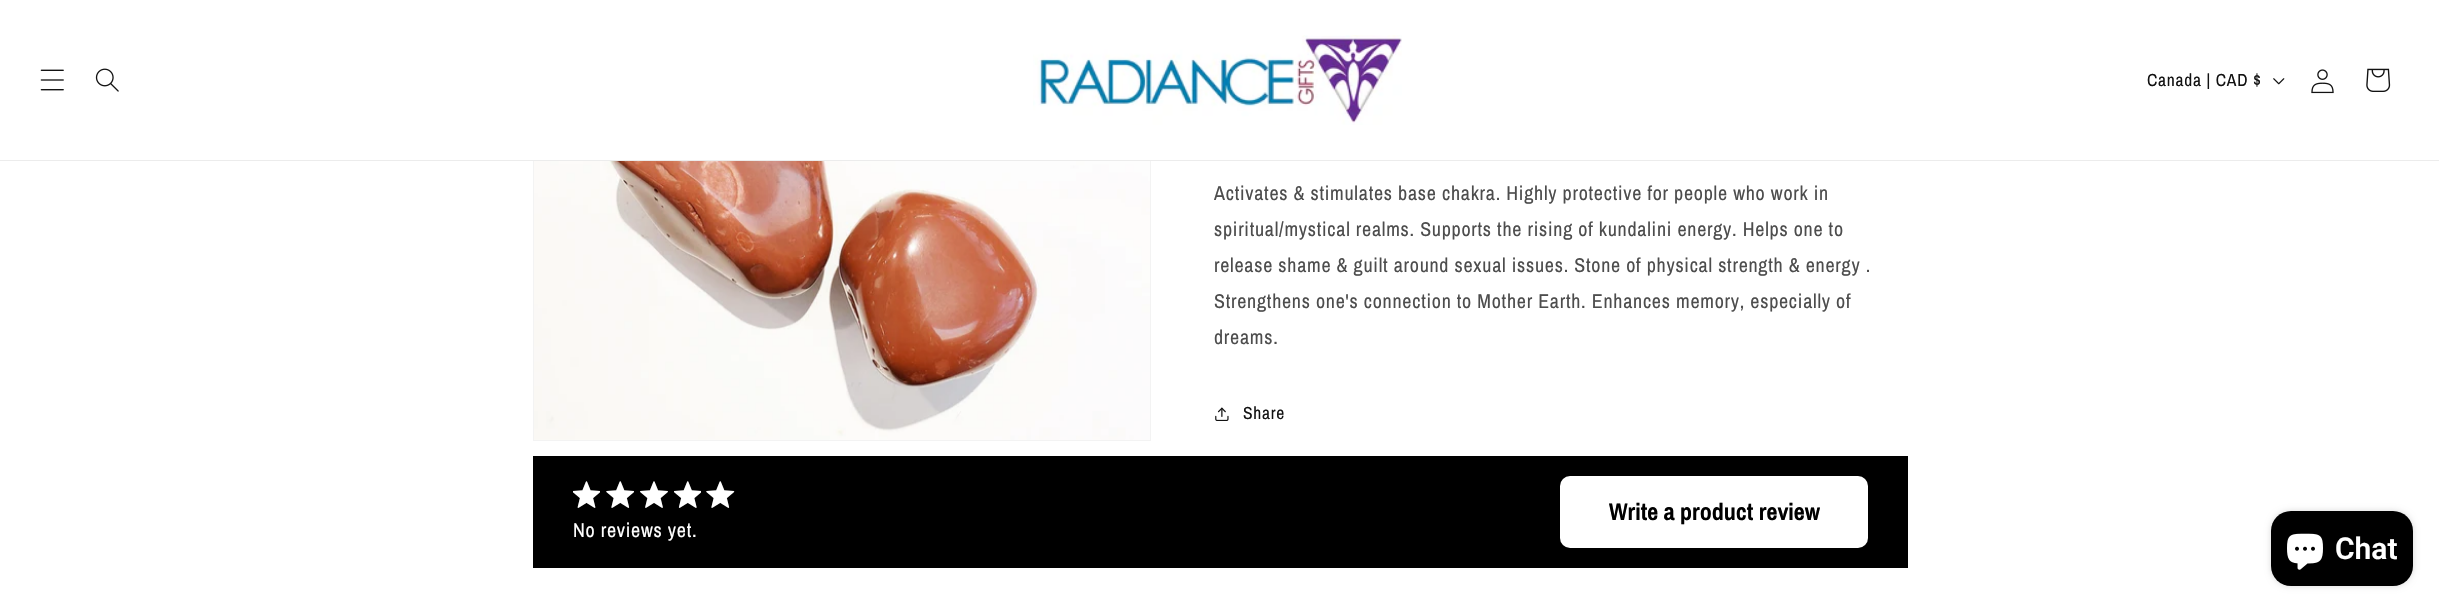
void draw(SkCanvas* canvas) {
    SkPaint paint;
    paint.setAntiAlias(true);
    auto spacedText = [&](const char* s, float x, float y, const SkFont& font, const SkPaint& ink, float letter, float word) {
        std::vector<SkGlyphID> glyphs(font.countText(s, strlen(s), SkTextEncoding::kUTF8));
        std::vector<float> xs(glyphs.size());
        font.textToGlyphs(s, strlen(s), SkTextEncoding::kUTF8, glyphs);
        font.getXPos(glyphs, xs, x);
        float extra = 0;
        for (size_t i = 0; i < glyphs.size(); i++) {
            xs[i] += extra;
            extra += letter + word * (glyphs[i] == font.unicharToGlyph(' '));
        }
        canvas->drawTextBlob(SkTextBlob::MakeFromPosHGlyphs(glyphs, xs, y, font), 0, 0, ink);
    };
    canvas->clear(0xFFFFFFFF);
    paint.setStyle(SkPaint::kStroke_Style);
    paint.setStrokeWidth(1);
    paint.setColor(0xFFF3F3F3);
    canvas->drawRect(SkRect::MakeXYWH(533.5f, -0.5f, 617, 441), paint);
    paint.setStyle(SkPaint::kFill_Style);
    paint.setColor(0xFFFFFFFF);
    canvas->drawRect(SkRect::MakeXYWH(533, 0, 618, 160), paint);
    paint.setColor(0xFFECECEC);
    canvas->drawRect(SkRect::MakeXYWH(0, 160, 2439, 1), paint);
    canvas->drawImageRect(SkImages::DeferredFromEncodedData(SkData::MakeFromFileName("img1.png")), SkRect::MakeXYWH(40, 69, 24, 22), SkSamplingOptions());
    canvas->drawImageRect(SkImages::DeferredFromEncodedData(SkData::MakeFromFileName("img2.png")), SkRect::MakeXYWH(95, 68, 24, 24), SkSamplingOptions());
    canvas->drawImageRect(SkImages::DeferredFromEncodedData(SkData::MakeFromFileName("img3.png")), SkRect::MakeXYWH(1033, 35, 369, 90), SkSamplingOptions());
    SkFont font1(fontMgr->matchFamilyStyle("Archivo Narrow", SkFontStyle::Normal()), 17.5f);
    font1.setSubpixel(true);
    paint.setColor(0xFF121212);
    spacedText("Canada | CAD $", 2147, 86, font1, paint, 0.75f, 0);
    canvas->drawImageRect(SkImages::DeferredFromEncodedData(SkData::MakeFromFileName("img4.png")), SkRect::MakeXYWH(2273, 78, 12, 7), SkSamplingOptions());
    canvas->drawImageRect(SkImages::DeferredFromEncodedData(SkData::MakeFromFileName("img5.png")), SkRect::MakeXYWH(2311, 69, 23, 25), SkSamplingOptions());
    canvas->drawImageRect(SkImages::DeferredFromEncodedData(SkData::MakeFromFileName("img6.png")), SkRect::MakeXYWH(2366, 68, 25, 24), SkSamplingOptions());
    canvas->drawImageRect(SkImages::DeferredFromEncodedData(SkData::MakeFromFileName("img7.png")), SkRect::MakeXYWH(534, 161, 616, 279), SkSamplingOptions());
    SkFont font2(fontMgr->matchFamilyStyle("Archivo Narrow", SkFontStyle::Normal()), 20);
    font2.setSubpixel(true);
    paint.setColor(0xFF4D4D4D);
    spacedText("Activates & stimulates base chakra. Highly protective for people who work in", 1214, 200, font2, paint, 0.75f, 0);
    spacedText("spiritual/mystical realms. Supports the rising of kundalini energy. Helps one to", 1214, 236, font2, paint, 0.75f, 0);
    spacedText("release shame & guilt around sexual issues. Stone of physical strength & energy .", 1214, 272, font2, paint, 0.75f, 0);
    spacedText("Strengthens one's connection to Mother Earth. Enhances memory, especially of", 1214, 308, font2, paint, 0.75f, 0);
    spacedText("dreams.", 1214, 344, font2, paint, 0.75f, 0);
    canvas->drawImageRect(SkImages::DeferredFromEncodedData(SkData::MakeFromFileName("img8.png")), SkRect::MakeXYWH(1215, 407, 14, 14), SkSamplingOptions());
    paint.setColor(0xFF121212);
    spacedText("Share", 1243, 419, font1, paint, 0.75f, 0);
    paint.setColor(0xFF000000);
    canvas->drawRect(SkRect::MakeXYWH(533, 456, 1375, 112), paint);
    paint.setColor(0xFFFFFFFF);
    canvas->drawRoundRect(SkRect::MakeXYWH(1560, 476, 308, 72), 10, 10, paint);
    SkFont font3(fontMgr->matchFamilyStyle("Archivo Narrow", SkFontStyle::Bold()), 24);
    font3.setSubpixel(true);
    paint.setColor(0xFF000000);
    canvas->drawString("Write a product review", 1609, 520, font3, paint);
    canvas->drawImageRect(SkImages::DeferredFromEncodedData(SkData::MakeFromFileName("img9.png")), SkRect::MakeXYWH(573, 481, 27, 27), SkSamplingOptions());
    canvas->drawImageRect(SkImages::DeferredFromEncodedData(SkData::MakeFromFileName("img10.png")), SkRect::MakeXYWH(606, 481, 28, 27), SkSamplingOptions());
    canvas->drawImageRect(SkImages::DeferredFromEncodedData(SkData::MakeFromFileName("img11.png")), SkRect::MakeXYWH(640, 481, 28, 27), SkSamplingOptions());
    canvas->drawImageRect(SkImages::DeferredFromEncodedData(SkData::MakeFromFileName("img12.png")), SkRect::MakeXYWH(674, 481, 27, 27), SkSamplingOptions());
    canvas->drawImageRect(SkImages::DeferredFromEncodedData(SkData::MakeFromFileName("img13.png")), SkRect::MakeXYWH(706, 481, 29, 27), SkSamplingOptions());
    paint.setColor(0xFFFFFFFF);
    spacedText("No reviews yet.", 573, 537, font2, paint, 0.75f, 0);
    paint.setColor(0x26000000);
    paint.setMaskFilter(SkMaskFilter::MakeBlur(kNormal_SkBlurStyle, 3));
    canvas->drawRoundRect(SkRect::MakeXYWH(2271, 511, 142, 75), 20, 20, paint);
    paint.setMaskFilter(nullptr);
    paint.setColor(0xFF000000);
    canvas->drawRoundRect(SkRect::MakeXYWH(2271, 511, 142, 75), 20, 20, paint);
    canvas->drawImageRect(SkImages::DeferredFromEncodedData(SkData::MakeFromFileName("img14.png")), SkRect::MakeXYWH(2287, 533, 36, 37), SkSamplingOptions());
    SkFont font4(fontMgr->matchFamilyStyle("Roboto", SkFontStyle(600, SkFontStyle::kNormal_Width, SkFontStyle::kUpright_Slant)), 30);
    font4.setSubpixel(true);
    paint.setColor(0xFFFFFFFF);
    canvas->drawString("Chat", 2335, 559, font4, paint);
}
